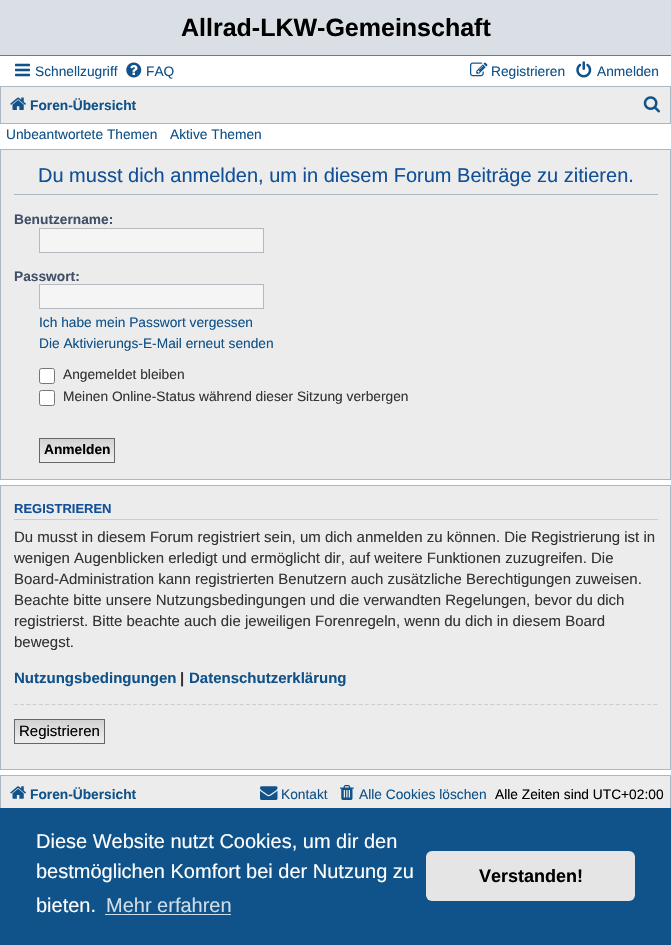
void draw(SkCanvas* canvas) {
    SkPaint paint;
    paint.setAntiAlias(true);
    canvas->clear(0xFFFFFFFF);
    paint.setColor(0xFFD9DFE4);
    canvas->drawRect(SkRect::MakeXYWH(0, 0, 671, 55), paint);
    paint.setColor(0xFF4787A7);
    canvas->drawRect(SkRect::MakeXYWH(0, 55, 671, 1), paint);
    SkFont font1(fontMgr->matchFamilyStyle("Liberation Sans", SkFontStyle::Bold()), 25);
    font1.setSubpixel(true);
    paint.setColor(0xFF000000);
    canvas->drawString("Allrad-LKW-Gemeinschaft", 181, 36, font1, paint);
    canvas->drawImageRect(SkImages::DeferredFromEncodedData(SkData::MakeFromFileName("img1.png")), SkRect::MakeXYWH(15, 63, 15, 14), SkSamplingOptions());
    SkFont font2(fontMgr->matchFamilyStyle("Liberation Sans", SkFontStyle::Normal()), 13.75f);
    font2.setSubpixel(true);
    paint.setColor(0xFF105289);
    canvas->drawString("Schnellzugriff", 35, 76, font2, paint);
    canvas->drawImageRect(SkImages::DeferredFromEncodedData(SkData::MakeFromFileName("img2.png")), SkRect::MakeXYWH(126, 62, 16, 16), SkSamplingOptions());
    canvas->drawString("FAQ", 146, 76, font2, paint);
    canvas->drawImageRect(SkImages::DeferredFromEncodedData(SkData::MakeFromFileName("img3.png")), SkRect::MakeXYWH(470, 62, 18, 15), SkSamplingOptions());
    canvas->drawString("Registrieren", 491, 76, font2, paint);
    canvas->drawImageRect(SkImages::DeferredFromEncodedData(SkData::MakeFromFileName("img4.png")), SkRect::MakeXYWH(576, 61, 16, 17), SkSamplingOptions());
    canvas->drawString("Anmelden", 597, 76, font2, paint);
    paint.setColor(0xFFECECEC);
    canvas->drawRect(SkRect::MakeXYWH(0.5f, 86.5f, 670, 37), paint);
    paint.setStyle(SkPaint::kStroke_Style);
    paint.setStrokeWidth(1);
    paint.setColor(0xFFA9B8C2);
    canvas->drawRect(SkRect::MakeXYWH(0.5f, 86.5f, 670, 37), paint);
    canvas->drawImageRect(SkImages::DeferredFromEncodedData(SkData::MakeFromFileName("img5.png")), SkRect::MakeXYWH(10, 97, 16, 13), SkSamplingOptions());
    SkFont font3(fontMgr->matchFamilyStyle("Liberation Sans", SkFontStyle::Bold()), 13.75f);
    font3.setSubpixel(true);
    paint.setStyle(SkPaint::kFill_Style);
    paint.setColor(0xFF105289);
    canvas->drawString("Foren-Übersicht", 30, 110, font3, paint);
    canvas->drawImageRect(SkImages::DeferredFromEncodedData(SkData::MakeFromFileName("img6.png")), SkRect::MakeXYWH(643, 96, 17, 17), SkSamplingOptions());
    canvas->drawString("Unbeantwortete Themen", 6, 139, font2, paint);
    canvas->drawString("Aktive Themen", 170, 139, font2, paint);
    paint.setColor(0xFFECECEC);
    canvas->drawRect(SkRect::MakeXYWH(0.5f, 149.5f, 670, 330), paint);
    paint.setStyle(SkPaint::kStroke_Style);
    paint.setColor(0xFFA9B8C2);
    canvas->drawRect(SkRect::MakeXYWH(0.5f, 149.5f, 670, 330), paint);
    paint.setStyle(SkPaint::kFill_Style);
    canvas->drawRect(SkRect::MakeXYWH(14, 194, 644, 1), paint);
    SkFont font4(fontMgr->matchFamilyStyle("Liberation Sans", SkFontStyle::Normal()), 20);
    font4.setSubpixel(true);
    paint.setColor(0xFF115098);
    canvas->drawString("Du musst dich anmelden, um in diesem Forum Beiträge zu zitieren.", 38, 182, font4, paint);
    paint.setColor(0xFF425067);
    canvas->drawString("Benutzername:", 14, 224, font3, paint);
    paint.setColor(0xFFF5F5F5);
    canvas->drawRect(SkRect::MakeXYWH(39.5f, 228.5f, 224, 24), paint);
    paint.setStyle(SkPaint::kStroke_Style);
    paint.setColor(0xFFB4BAC0);
    canvas->drawRect(SkRect::MakeXYWH(39.5f, 228.5f, 224, 24), paint);
    paint.setStyle(SkPaint::kFill_Style);
    paint.setColor(0xFF425067);
    canvas->drawString("Passwort:", 14, 281, font3, paint);
    paint.setColor(0xFFF5F5F5);
    canvas->drawRect(SkRect::MakeXYWH(39.5f, 284.5f, 224, 24), paint);
    paint.setStyle(SkPaint::kStroke_Style);
    paint.setColor(0xFFB4BAC0);
    canvas->drawRect(SkRect::MakeXYWH(39.5f, 284.5f, 224, 24), paint);
    paint.setStyle(SkPaint::kFill_Style);
    paint.setColor(0xFF105289);
    canvas->drawString("Ich habe mein Passwort vergessen", 39, 327, font2, paint);
    canvas->drawString("Die Aktivierungs-E-Mail erneut senden", 39, 348, font2, paint);
    paint.setColor(0xFFFFFFFF);
    canvas->drawRoundRect(SkRect::MakeXYWH(39.5f, 368.5f, 15, 15), 2, 2, paint);
    paint.setStyle(SkPaint::kStroke_Style);
    paint.setColor(0xFF767676);
    canvas->drawRoundRect(SkRect::MakeXYWH(39.5f, 368.5f, 15, 15), 2, 2, paint);
    paint.setStyle(SkPaint::kFill_Style);
    paint.setColor(0xFF333333);
    canvas->drawString("Angemeldet bleiben", 63, 379, font2, paint);
    paint.setColor(0xFFFFFFFF);
    canvas->drawRoundRect(SkRect::MakeXYWH(39.5f, 390.5f, 15, 15), 2, 2, paint);
    paint.setStyle(SkPaint::kStroke_Style);
    paint.setColor(0xFF767676);
    canvas->drawRoundRect(SkRect::MakeXYWH(39.5f, 390.5f, 15, 15), 2, 2, paint);
    paint.setStyle(SkPaint::kFill_Style);
    paint.setColor(0xFF333333);
    canvas->drawString("Meinen Online-Status während dieser Sitzung verbergen", 63, 401, font2, paint);
    paint.setColor(0xFFEFEFEF);
    canvas->drawRect(SkRect::MakeXYWH(40, 461, 74, 1), paint);
    {
        const SkColor colors[] = {0xFFD2D2D2, 0xFFEFEFEF};
        const float stops[] = {0, 1};
        const SkPoint ends[] = {{77, 439}, {77, 461}};
        paint.setShader(SkGradientShader::MakeLinear(ends, colors, stops, 2, SkTileMode::kClamp));
        paint.setAlpha(255);
    }
    canvas->drawRect(SkRect::MakeXYWH(40, 439, 74, 18), paint);
    paint.setStyle(SkPaint::kStroke_Style);
    paint.setShader(nullptr);
    paint.setColor(0xFF666666);
    canvas->drawRect(SkRect::MakeXYWH(39.5f, 438.5f, 75, 24), paint);
    paint.setStyle(SkPaint::kFill_Style);
    paint.setColor(0xFF000000);
    canvas->drawString("Anmelden", 44, 454, font3, paint);
    paint.setColor(0xFFECECEC);
    canvas->drawRect(SkRect::MakeXYWH(0.5f, 485.5f, 670, 284), paint);
    paint.setStyle(SkPaint::kStroke_Style);
    paint.setColor(0xFFA9B8C2);
    canvas->drawRect(SkRect::MakeXYWH(0.5f, 485.5f, 670, 284), paint);
    paint.setStyle(SkPaint::kFill_Style);
    paint.setColor(0xFFCCCCCC);
    canvas->drawRect(SkRect::MakeXYWH(14, 519, 644, 1), paint);
    SkFont font5(fontMgr->matchFamilyStyle("Liberation Sans", SkFontStyle::Bold()), 13);
    font5.setSubpixel(true);
    paint.setColor(0xFF115098);
    canvas->drawString("REGISTRIEREN", 14, 513, font5, paint);
    SkFont font6(fontMgr->matchFamilyStyle("Liberation Sans", SkFontStyle::Normal()), 15);
    font6.setSubpixel(true);
    paint.setColor(0xFF333333);
    canvas->drawString("Du musst in diesem Forum registriert sein, um dich anmelden zu können. Die Registrierung ist in", 14, 542, font6, paint);
    canvas->drawString("wenigen Augenblicken erledigt und ermöglicht dir, auf weitere Funktionen zuzugreifen. Die", 14, 563, font6, paint);
    canvas->drawString("Board-Administration kann registrierten Benutzern auch zusätzliche Berechtigungen zuweisen.", 14, 584, font6, paint);
    canvas->drawString("Beachte bitte unsere Nutzungsbedingungen und die verwandten Regelungen, bevor du dich", 14, 605, font6, paint);
    canvas->drawString("registrierst. Bitte beachte auch die jeweiligen Forenregeln, wenn du dich in diesem Board", 14, 626, font6, paint);
    canvas->drawString("bewegst.", 14, 647, font6, paint);
    SkFont font7(fontMgr->matchFamilyStyle("Liberation Sans", SkFontStyle::Bold()), 15);
    font7.setSubpixel(true);
    paint.setColor(0xFF105289);
    canvas->drawString("Nutzungsbedingungen", 14, 683, font7, paint);
    paint.setColor(0xFF333333);
    canvas->drawString("|", 180, 683, font7, paint);
    paint.setColor(0xFF105289);
    canvas->drawString("Datenschutzerklärung", 189, 683, font7, paint);
    paint.setStyle(SkPaint::kStroke_Style);
    paint.setStrokeWidth(1.2f);
    paint.setColor(0xFFCCCCCC);
    paint.setPathEffect(SkDashPathEffect::Make({{3.75f, 2.52f}}, 0));
    canvas->drawPath(SkPathBuilder().moveTo(14, 704.5f).lineTo(657.5f, 704.5f).detach(), paint);
    paint.setPathEffect(nullptr);
    paint.setStyle(SkPaint::kFill_Style);
    {
        const SkColor colors[] = {0xFFD2D2D2, 0xFFEFEFEF};
        const float stops[] = {0, 1};
        const SkPoint ends[] = {{59, 720}, {59, 743}};
        paint.setShader(SkGradientShader::MakeLinear(ends, colors, stops, 2, SkTileMode::kClamp));
        paint.setAlpha(255);
    }
    canvas->drawRect(SkRect::MakeXYWH(15, 720, 89, 19), paint);
    paint.setStyle(SkPaint::kStroke_Style);
    paint.setStrokeWidth(1);
    paint.setShader(nullptr);
    paint.setColor(0xFF666666);
    canvas->drawRect(SkRect::MakeXYWH(14.5f, 719.5f, 90, 24), paint);
    paint.setStyle(SkPaint::kFill_Style);
    paint.setColor(0xFF000000);
    canvas->drawString("Registrieren", 19, 736, font6, paint);
    paint.setColor(0xFFECECEC);
    canvas->drawRect(SkRect::MakeXYWH(1, 776, 669, 32), paint);
    paint.setStyle(SkPaint::kStroke_Style);
    paint.setColor(0xFFA9B8C2);
    canvas->drawRect(SkRect::MakeXYWH(0.5f, 775.5f, 670, 37), paint);
    canvas->drawImageRect(SkImages::DeferredFromEncodedData(SkData::MakeFromFileName("img7.png")), SkRect::MakeXYWH(10, 786, 16, 13), SkSamplingOptions());
    paint.setStyle(SkPaint::kFill_Style);
    paint.setColor(0xFF105289);
    canvas->drawString("Foren-Übersicht", 30, 799, font3, paint);
    canvas->drawImageRect(SkImages::DeferredFromEncodedData(SkData::MakeFromFileName("img8.png")), SkRect::MakeXYWH(260, 786, 18, 14), SkSamplingOptions());
    canvas->drawString("Kontakt", 281, 799, font2, paint);
    canvas->drawImageRect(SkImages::DeferredFromEncodedData(SkData::MakeFromFileName("img9.png")), SkRect::MakeXYWH(340, 785, 14, 15), SkSamplingOptions());
    canvas->drawString("Alle Cookies löschen", 359, 799, font2, paint);
    paint.setColor(0xFF000000);
    canvas->drawString("Alle Zeiten sind UTC+02:00", 495, 799, font2, paint);
    paint.setColor(0xFF0F538A);
    canvas->drawRect(SkRect::MakeXYWH(0, 808, 671, 137), paint);
    paint.setColor(0xFFFFFFFF);
    canvas->drawString("Diese Website nutzt Cookies, um dir den", 36, 848, font4, paint);
    canvas->drawString("bestmöglichen Komfort bei der Nutzung zu", 36, 878, font4, paint);
    canvas->drawString("bieten.", 36, 912, font4, paint);
    paint.setColor(0xFFCFDDE8);
    canvas->drawString("Mehr erfahren", 106, 912, font4, paint);
    canvas->drawRect(SkRect::MakeXYWH(105, 914, 126, 1), paint);
    paint.setColor(0xFFE5E5E5);
    canvas->drawRoundRect(SkRect::MakeXYWH(426, 851, 209, 50), 6, 6, paint);
    SkFont font8(fontMgr->matchFamilyStyle("Liberation Sans", SkFontStyle::Bold()), 18);
    font8.setSubpixel(true);
    paint.setColor(0xFF000000);
    canvas->drawString("Verstanden!", 479, 882, font8, paint);
}
